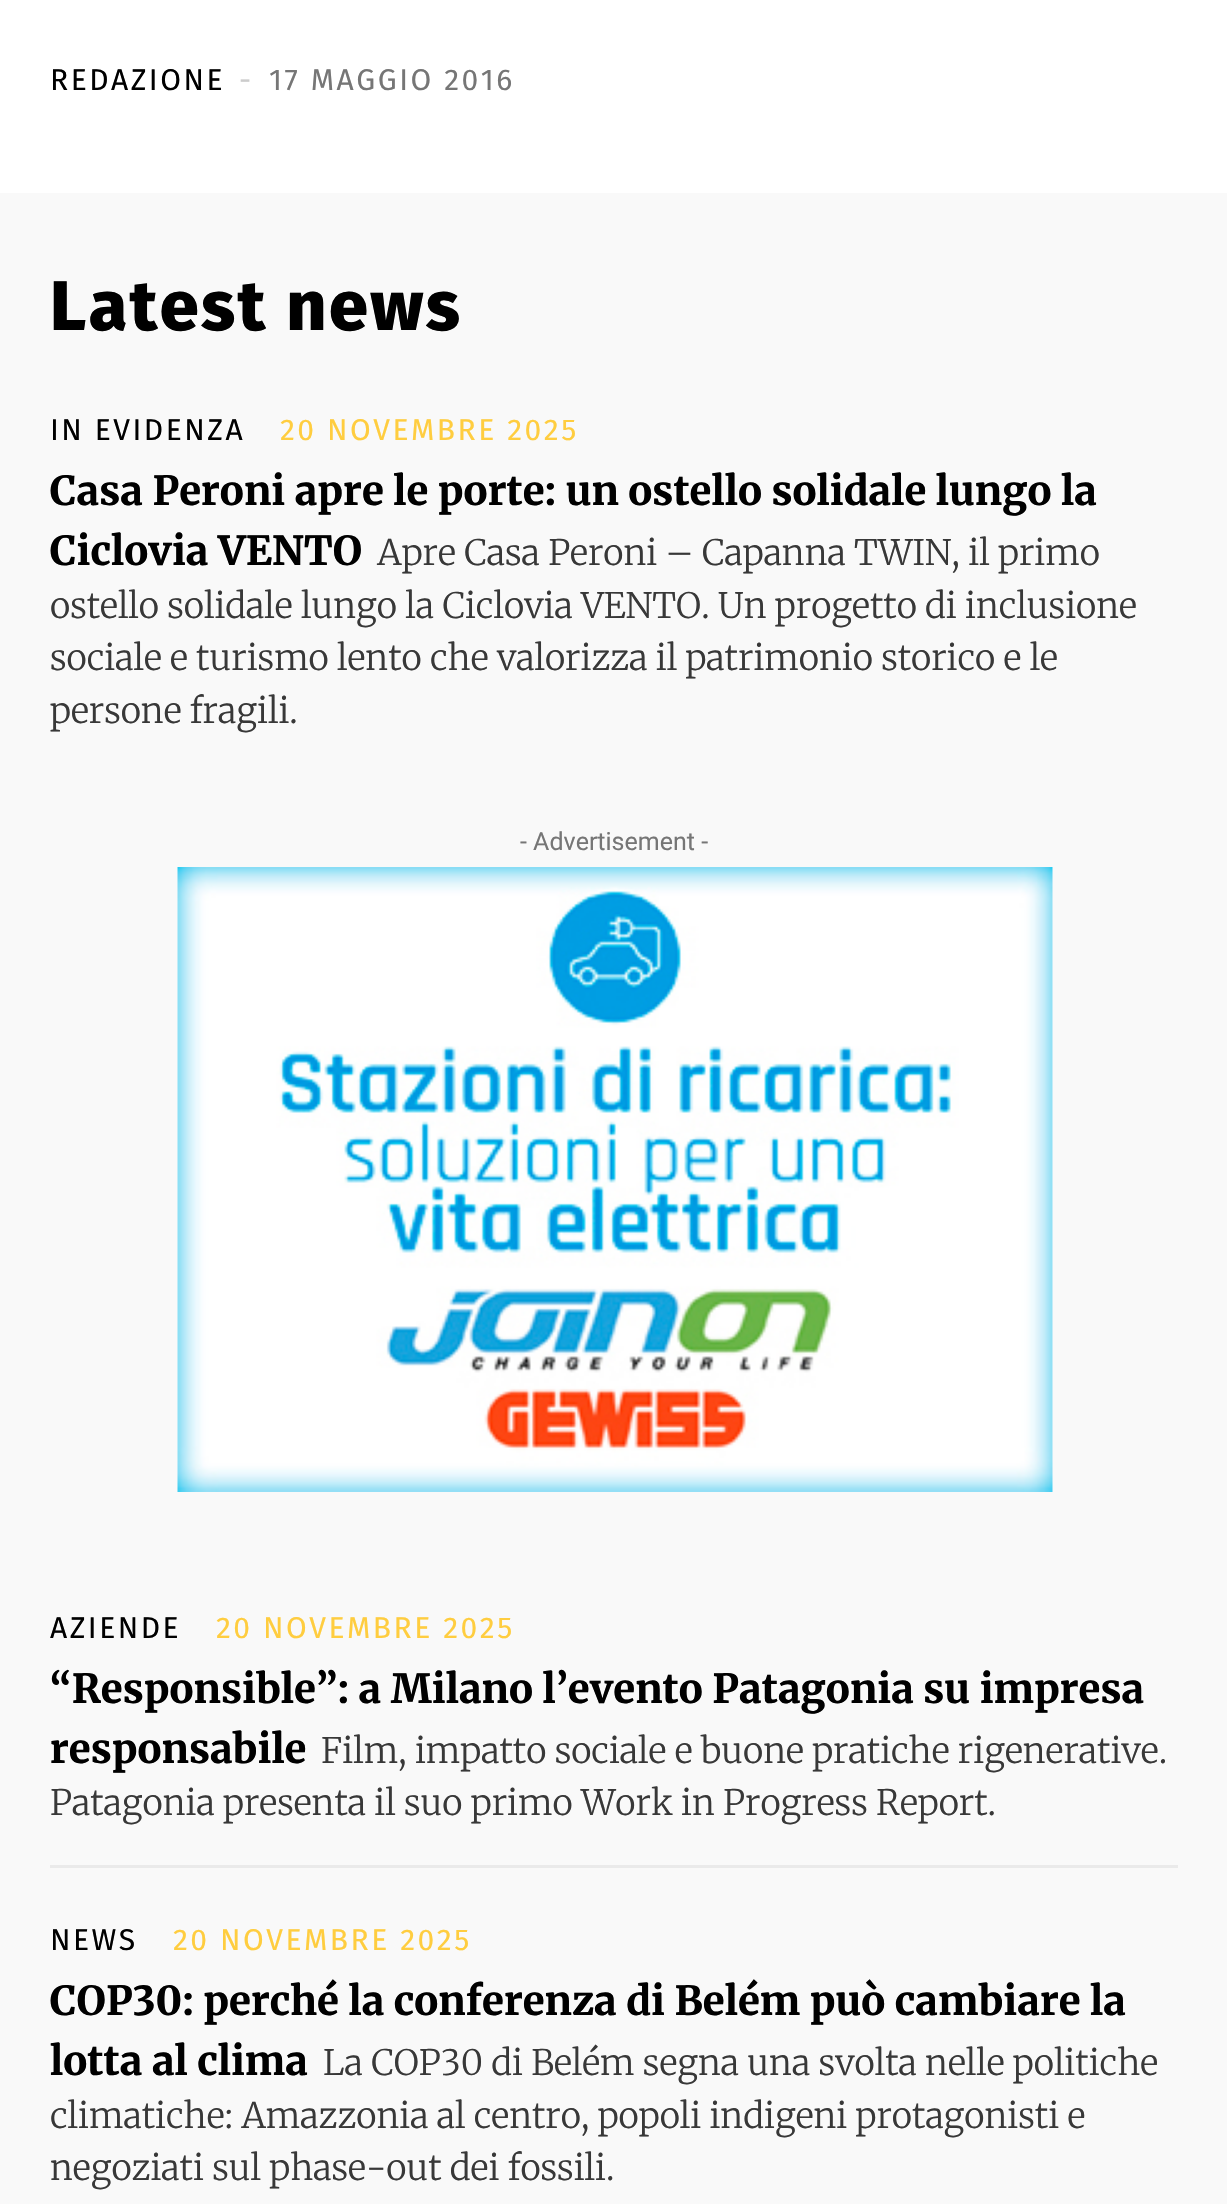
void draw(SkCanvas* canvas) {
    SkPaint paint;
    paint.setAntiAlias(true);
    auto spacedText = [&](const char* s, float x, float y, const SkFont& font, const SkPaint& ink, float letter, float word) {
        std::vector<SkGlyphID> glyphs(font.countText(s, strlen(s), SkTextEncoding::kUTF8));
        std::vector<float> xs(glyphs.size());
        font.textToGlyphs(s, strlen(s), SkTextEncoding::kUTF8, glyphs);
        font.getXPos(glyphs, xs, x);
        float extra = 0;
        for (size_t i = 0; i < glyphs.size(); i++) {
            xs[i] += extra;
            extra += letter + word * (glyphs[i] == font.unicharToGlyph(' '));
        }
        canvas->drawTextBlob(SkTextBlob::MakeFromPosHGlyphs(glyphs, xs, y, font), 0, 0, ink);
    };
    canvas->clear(0xFFFFFFFF);
    SkFont font1(fontMgr->matchFamilyStyle("Fira Sans", SkFontStyle::Normal()), 30);
    font1.setSubpixel(true);
    paint.setColor(0xFF000000);
    spacedText("REDAZIONE", 50, 90, font1, paint, 2.5f, 0);
    paint.setColor(0xFFCCCCCC);
    spacedText("-", 239, 90, font1, paint, 2.5f, 0);
    paint.setColor(0xFF767676);
    spacedText("17 MAGGIO 2016", 269, 90, font1, paint, 2.5f, 0);
    paint.setColor(0xFFF9F9F9);
    canvas->drawRect(SkRect::MakeXYWH(0, 193, 1227, 2011), paint);
    SkFont font2(fontMgr->matchFamilyStyle("Fira Sans", SkFontStyle(800, SkFontStyle::kNormal_Width, SkFontStyle::kUpright_Slant)), 70);
    font2.setSubpixel(true);
    paint.setColor(0xFF000000);
    spacedText("Latest news", 50, 330, font2, paint, 2.5f, 0);
    spacedText("IN EVIDENZA", 50, 440, font1, paint, 2.5f, 0);
    paint.setColor(0xFFFFCD3F);
    spacedText("20 NOVEMBRE 2025", 280, 440, font1, paint, 2.5f, 0);
    SkFont font3(fontMgr->matchFamilyStyle("Merriweather", SkFontStyle(800, SkFontStyle::kNormal_Width, SkFontStyle::kUpright_Slant)), 40);
    font3.setSubpixel(true);
    paint.setColor(0xFF000000);
    canvas->drawString("Casa Peroni apre le porte: un ostello solidale lungo la", 50, 505, font3, paint);
    canvas->drawString("Ciclovia VENTO", 50, 565, font3, paint);
    SkFont font4(fontMgr->matchFamilyStyle("Merriweather", SkFontStyle(300, SkFontStyle::kNormal_Width, SkFontStyle::kUpright_Slant)), 35);
    font4.setSubpixel(true);
    paint.setColor(0xFF383838);
    canvas->drawString("Apre Casa Peroni – Capanna TWIN, il primo", 377, 565, font4, paint);
    canvas->drawString("ostello solidale lungo la Ciclovia VENTO. Un progetto di inclusione", 50, 618, font4, paint);
    canvas->drawString("sociale e turismo lento che valorizza il patrimonio storico e le", 50, 670, font4, paint);
    canvas->drawString("persone fragili.", 50, 723, font4, paint);
    SkFont font5(fontMgr->matchFamilyStyle("Roboto", SkFontStyle::Normal()), 25);
    font5.setSubpixel(true);
    paint.setColor(0xFF767676);
    canvas->drawString("- Advertisement -", 520, 850, font5, paint);
    canvas->drawImageRect(SkImages::DeferredFromEncodedData(SkData::MakeFromFileName("img1.png")), SkRect::MakeXYWH(177, 867, 876, 625), SkSamplingOptions());
    paint.setColor(0xFF000000);
    spacedText("AZIENDE", 50, 1638, font1, paint, 2.5f, 0);
    paint.setColor(0xFFFFCD3F);
    spacedText("20 NOVEMBRE 2025", 216, 1638, font1, paint, 2.5f, 0);
    paint.setColor(0xFF000000);
    canvas->drawString("“Responsible”: a Milano l’evento Patagonia su impresa", 50, 1703, font3, paint);
    canvas->drawString("responsabile", 50, 1763, font3, paint);
    paint.setColor(0xFF383838);
    canvas->drawString("Film, impatto sociale e buone pratiche rigenerative.", 321, 1763, font4, paint);
    canvas->drawString("Patagonia presenta il suo primo Work in Progress Report.", 50, 1815, font4, paint);
    paint.setColor(0xFFEAEAEA);
    canvas->drawRect(SkRect::MakeXYWH(50, 1865, 1128, 3), paint);
    paint.setColor(0xFF000000);
    spacedText("NEWS", 50, 1950, font1, paint, 2.5f, 0);
    paint.setColor(0xFFFFCD3F);
    spacedText("20 NOVEMBRE 2025", 173, 1950, font1, paint, 2.5f, 0);
    paint.setColor(0xFF000000);
    canvas->drawString("COP30: perché la conferenza di Belém può cambiare la", 50, 2015, font3, paint);
    canvas->drawString("lotta al clima", 50, 2075, font3, paint);
    paint.setColor(0xFF383838);
    canvas->drawString("La COP30 di Belém segna una svolta nelle politiche", 323, 2075, font4, paint);
    canvas->drawString("climatiche: Amazzonia al centro, popoli indigeni protagonisti e", 50, 2128, font4, paint);
    canvas->drawString("negoziati sul phase-out dei fossili.", 50, 2180, font4, paint);
}
